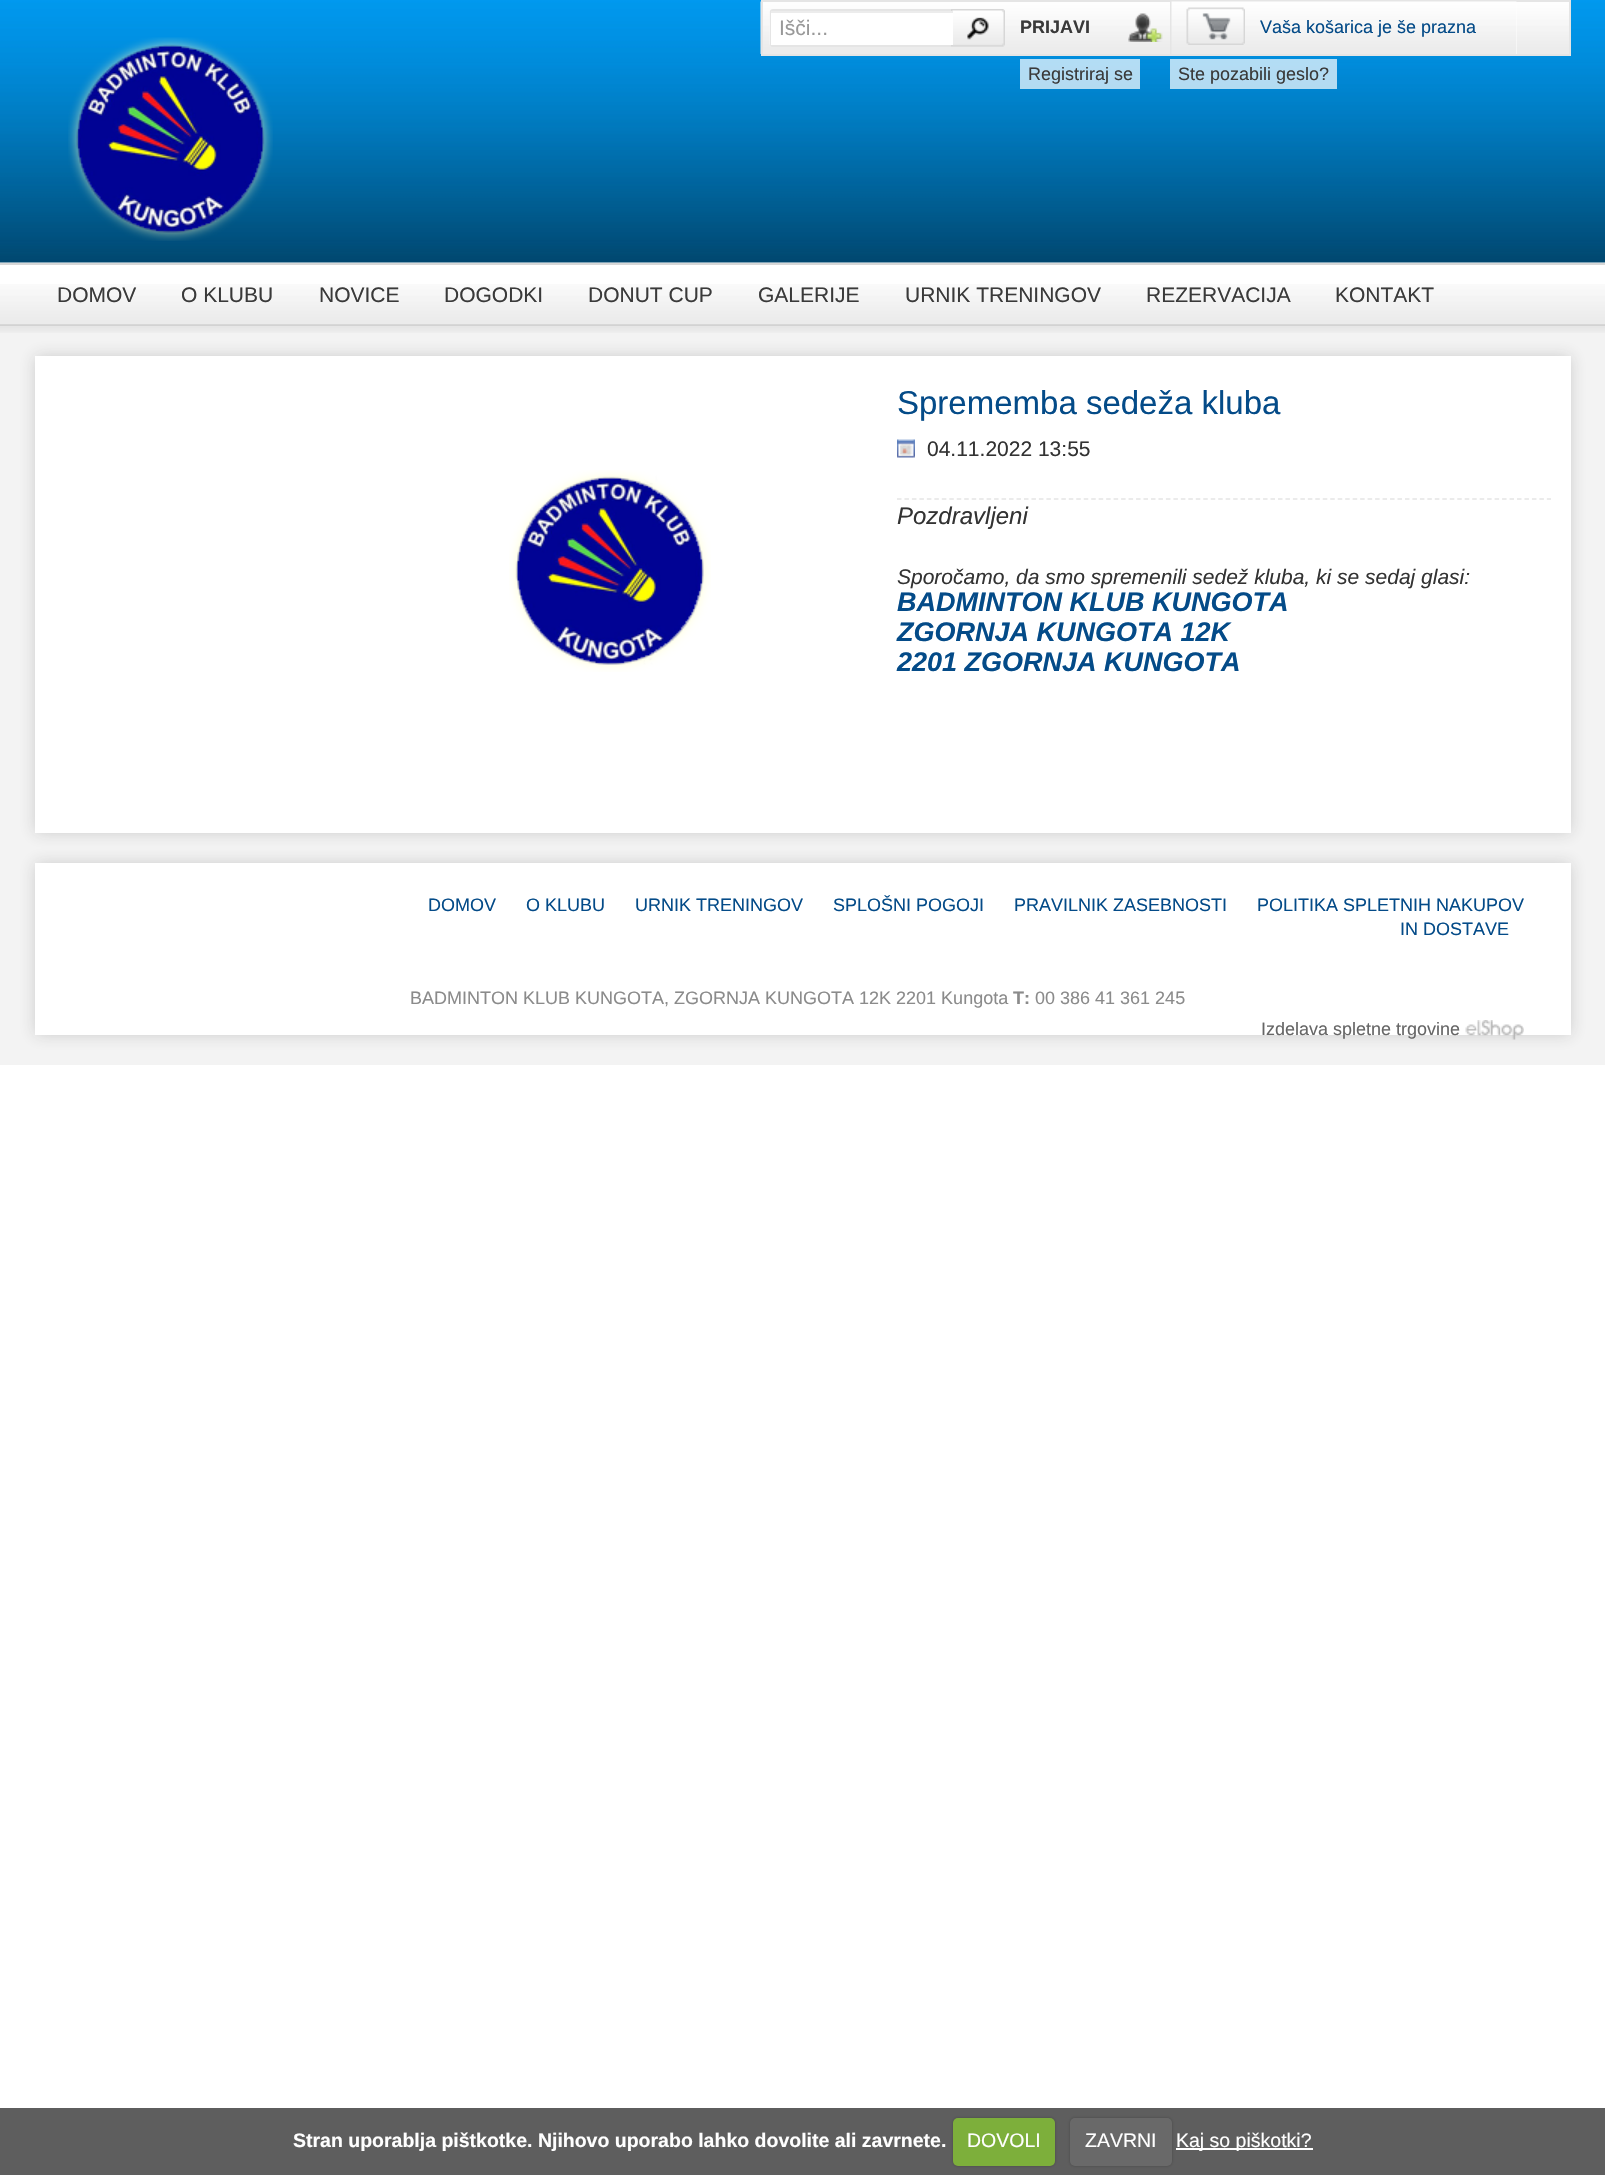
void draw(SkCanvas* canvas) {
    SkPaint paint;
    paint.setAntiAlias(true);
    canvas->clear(0xFFFFFFFF);
    canvas->drawImageRect(SkImages::DeferredFromEncodedData(SkData::MakeFromFileName("img1.png")), SkRect::MakeXYWH(0, 0, 1605, 263), SkSamplingOptions());
    canvas->drawImageRect(SkImages::DeferredFromEncodedData(SkData::MakeFromFileName("img2.png")), SkRect::MakeXYWH(68, 37, 205, 204), SkSamplingOptions());
    canvas->drawImageRect(SkImages::DeferredFromEncodedData(SkData::MakeFromFileName("img3.png")), SkRect::MakeXYWH(760, 1, 809, 53), SkSamplingOptions());
    paint.setStyle(SkPaint::kStroke_Style);
    paint.setStrokeWidth(2);
    paint.setColor(0xFFE5E5E5);
    canvas->drawRect(SkRect::MakeXYWH(762, 1, 808, 54), paint);
    canvas->drawImageRect(SkImages::DeferredFromEncodedData(SkData::MakeFromFileName("img4.png")), SkRect::MakeXYWH(769, 10, 236, 35), SkSamplingOptions());
    canvas->drawRoundRect(SkRect::MakeXYWH(771, 10, 233, 36), 2, 2, paint);
    canvas->drawImageRect(SkImages::DeferredFromEncodedData(SkData::MakeFromFileName("img5.png")), SkRect::MakeXYWH(951, 9, 54, 38), SkSamplingOptions());
    paint.setStyle(SkPaint::kFill_Style);
    paint.setColor(0xFFFFFFFF);
    canvas->drawRect(SkRect::MakeXYWH(771, 13, 182, 32), paint);
    paint.setColor(0xFFECECEC);
    canvas->drawRect(SkRect::MakeXYWH(771, 11, 182, 2), paint);
    SkFont font1(fontMgr->matchFamilyStyle("Liberation Sans", SkFontStyle::Normal()), 21);
    font1.setSubpixel(true);
    paint.setColor(0xFF999999);
    canvas->drawString("Išči...", 779, 35, font1, paint);
    canvas->drawImageRect(SkImages::DeferredFromEncodedData(SkData::MakeFromFileName("img6.png")), SkRect::MakeXYWH(1128, 13, 35, 29), SkSamplingOptions());
    paint.setColor(0xFFE5E5E5);
    canvas->drawRect(SkRect::MakeXYWH(1170, 2, 2, 52), paint);
    SkFont font2(fontMgr->matchFamilyStyle("Liberation Sans", SkFontStyle::Bold()), 18);
    font2.setSubpixel(true);
    paint.setColor(0xFF3A3A3A);
    canvas->drawString("PRIJAVI", 1020, 33, font2, paint);
    paint.setColor(0xB3FFFFFF);
    canvas->drawRect(SkRect::MakeXYWH(1020, 59, 120, 30), paint);
    SkFont font3(fontMgr->matchFamilyStyle("Liberation Sans", SkFontStyle::Normal()), 18);
    font3.setSubpixel(true);
    paint.setColor(0xFF3A3A3A);
    canvas->drawString("Registriraj se", 1028, 80, font3, paint);
    paint.setColor(0xB3FFFFFF);
    canvas->drawRect(SkRect::MakeXYWH(1170, 59, 167, 30), paint);
    paint.setColor(0xFF3A3A3A);
    canvas->drawString("Ste pozabili geslo?", 1178, 80, font3, paint);
    paint.setColor(0xFFFFFFFF);
    canvas->drawRect(SkRect::MakeXYWH(1516, 2, 1, 52), paint);
    canvas->drawImageRect(SkImages::DeferredFromEncodedData(SkData::MakeFromFileName("img7.png")), SkRect::MakeXYWH(1171, 1, 346, 53), SkSamplingOptions());
    canvas->drawImageRect(SkImages::DeferredFromEncodedData(SkData::MakeFromFileName("img8.png")), SkRect::MakeXYWH(1186, 7, 59, 38), SkSamplingOptions());
    paint.setColor(0xFF044B88);
    canvas->drawString("Vaša košarica je še prazna", 1260, 33, font3, paint);
    canvas->drawImageRect(SkImages::DeferredFromEncodedData(SkData::MakeFromFileName("img9.png")), SkRect::MakeXYWH(0, 284, 1605, 40), SkSamplingOptions());
    paint.setColor(0xFFD7D7D7);
    canvas->drawRect(SkRect::MakeXYWH(0, 263, 1605, 2), paint);
    canvas->drawRect(SkRect::MakeXYWH(0, 324, 1605, 2), paint);
    paint.setColor(0xFF3A3A3A);
    canvas->drawString("DOMOV", 57, 302, font1, paint);
    canvas->drawString("O KLUBU", 181, 302, font1, paint);
    canvas->drawString("NOVICE", 319, 302, font1, paint);
    canvas->drawString("DOGODKI", 444, 302, font1, paint);
    canvas->drawString("DONUT CUP", 588, 302, font1, paint);
    canvas->drawString("GALERIJE", 758, 302, font1, paint);
    canvas->drawString("URNIK TRENINGOV", 905, 302, font1, paint);
    canvas->drawString("REZERVACIJA", 1146, 302, font1, paint);
    canvas->drawString("KONTAKT", 1335, 302, font1, paint);
    paint.setColor(0xFFF3F3F3);
    canvas->drawRect(SkRect::MakeXYWH(0, 326, 1605, 739), paint);
    canvas->drawImageRect(SkImages::DeferredFromEncodedData(SkData::MakeFromFileName("img10.png")), SkRect::MakeXYWH(0, 325, 1605, 8), SkSamplingOptions());
    paint.setColor(0x33323232);
    paint.setMaskFilter(SkMaskFilter::MakeBlur(kNormal_SkBlurStyle, 7.5f));
    canvas->drawRect(SkRect::MakeXYWH(35, 356, 1536, 477), paint);
    paint.setMaskFilter(nullptr);
    paint.setColor(0xFFFFFFFF);
    canvas->drawRect(SkRect::MakeXYWH(35, 356, 1536, 477), paint);
    canvas->drawImageRect(SkImages::DeferredFromEncodedData(SkData::MakeFromFileName("img11.png")), SkRect::MakeXYWH(509, 470, 202, 202), SkSamplingOptions());
    SkFont font4(fontMgr->matchFamilyStyle("Liberation Sans", SkFontStyle::Normal()), 33);
    font4.setSubpixel(true);
    paint.setColor(0xFF044B88);
    canvas->drawString("Sprememba sedeža kluba", 897, 414, font4, paint);
    canvas->drawImageRect(SkImages::DeferredFromEncodedData(SkData::MakeFromFileName("img12.png")), SkRect::MakeXYWH(897, 439, 18, 19), SkSamplingOptions());
    paint.setColor(0xFF333333);
    canvas->drawString("04.11.2022 13:55", 927, 456, font1, paint);
    paint.setStyle(SkPaint::kStroke_Style);
    paint.setStrokeWidth(1.5f);
    paint.setColor(0xFFE5E5E5);
    paint.setPathEffect(SkDashPathEffect::Make({{4.5f, 2.97f}}, 0));
    canvas->drawPath(SkPathBuilder().moveTo(897, 499).lineTo(1551, 499).detach(), paint);
    paint.setPathEffect(nullptr);
    SkFont font5(fontMgr->matchFamilyStyle("Liberation Sans", SkFontStyle::Italic()), 24);
    font5.setSubpixel(true);
    paint.setStyle(SkPaint::kFill_Style);
    paint.setColor(0xFF333333);
    canvas->drawString("Pozdravljeni", 897, 524, font5, paint);
    SkFont font6(fontMgr->matchFamilyStyle("Liberation Sans", SkFontStyle::Italic()), 21);
    font6.setSubpixel(true);
    canvas->drawString("Sporočamo, da smo spremenili sedež kluba, ki se sedaj glasi:", 897, 584, font6, paint);
    SkFont font7(fontMgr->matchFamilyStyle("Liberation Sans", SkFontStyle::BoldItalic()), 27);
    font7.setSubpixel(true);
    paint.setColor(0xFF044B88);
    canvas->drawString("BADMINTON KLUB KUNGOTA", 897, 611, font7, paint);
    canvas->drawString("ZGORNJA KUNGOTA 12K", 897, 641, font7, paint);
    canvas->drawString("2201 ZGORNJA KUNGOTA", 897, 671, font7, paint);
    paint.setColor(0x33323232);
    paint.setMaskFilter(SkMaskFilter::MakeBlur(kNormal_SkBlurStyle, 7.5f));
    canvas->drawRect(SkRect::MakeXYWH(35, 863, 1536, 172), paint);
    paint.setMaskFilter(nullptr);
    paint.setColor(0xFFFFFFFF);
    canvas->drawRect(SkRect::MakeXYWH(35, 863, 1536, 172), paint);
    paint.setColor(0xFF044B88);
    canvas->drawString("DOMOV", 428, 911, font3, paint);
    canvas->drawString("O KLUBU", 526, 911, font3, paint);
    canvas->drawString("URNIK TRENINGOV", 635, 911, font3, paint);
    canvas->drawString("SPLOŠNI POGOJI", 833, 911, font3, paint);
    canvas->drawString("PRAVILNIK ZASEBNOSTI", 1014, 911, font3, paint);
    canvas->drawString("POLITIKA SPLETNIH NAKUPOV", 1257, 911, font3, paint);
    canvas->drawString("IN DOSTAVE", 1400, 935, font3, paint);
    paint.setColor(0xFF8B8B8B);
    canvas->drawString("BADMINTON KLUB KUNGOTA, ZGORNJA KUNGOTA 12K 2201 Kungota", 410, 1004, font3, paint);
    canvas->drawString("T:", 1013, 1004, font2, paint);
    canvas->drawString("00 386 41 361 245", 1035, 1004, font3, paint);
    paint.setColor(0xFF666666);
    canvas->drawString("Izdelava spletne trgovine", 1261, 1035, font3, paint);
    canvas->drawImageRect(SkImages::DeferredFromEncodedData(SkData::MakeFromFileName("img13.png")), SkRect::MakeXYWH(1465, 1020, 59, 20), SkSamplingOptions());
    paint.setColor(0xFF5E5E5E);
    canvas->drawRect(SkRect::MakeXYWH(0, 2108, 1605, 67), paint);
    SkFont font8(fontMgr->matchFamilyStyle("Liberation Sans", SkFontStyle::Bold()), 19.5f);
    font8.setSubpixel(true);
    paint.setColor(0xFFFFFFFF);
    canvas->drawString("Stran uporablja pištkotke. Njihovo uporabo lahko dovolite ali zavrnete.", 293, 2147, font8, paint);
    paint.setColor(0x40000000);
    paint.setMaskFilter(SkMaskFilter::MakeBlur(kNormal_SkBlurStyle, 1.5f));
    canvas->drawRoundRect(SkRect::MakeXYWH(953, 2118, 102, 48), 5, 5, paint);
    paint.setMaskFilter(nullptr);
    paint.setColor(0xFF7DAF3B);
    canvas->drawRoundRect(SkRect::MakeXYWH(953, 2118, 102, 48), 5, 5, paint);
    SkFont font9(fontMgr->matchFamilyStyle("Liberation Sans", SkFontStyle::Normal()), 19.5f);
    font9.setSubpixel(true);
    paint.setColor(0xFFFFFFFF);
    canvas->drawString("DOVOLI", 967, 2147, font9, paint);
    paint.setColor(0x40000000);
    paint.setMaskFilter(SkMaskFilter::MakeBlur(kNormal_SkBlurStyle, 1.5f));
    canvas->drawRoundRect(SkRect::MakeXYWH(1070, 2118, 102, 48), 5, 5, paint);
    paint.setMaskFilter(nullptr);
    paint.setColor(0xFF696969);
    canvas->drawRoundRect(SkRect::MakeXYWH(1070, 2118, 102, 48), 5, 5, paint);
    paint.setColor(0xFFFFFFFF);
    canvas->drawString("ZAVRNI", 1085, 2147, font9, paint);
    canvas->drawRect(SkRect::MakeXYWH(1176, 2148, 137, 2), paint);
    canvas->drawString("Kaj so piškotki?", 1176, 2147, font9, paint);
}
